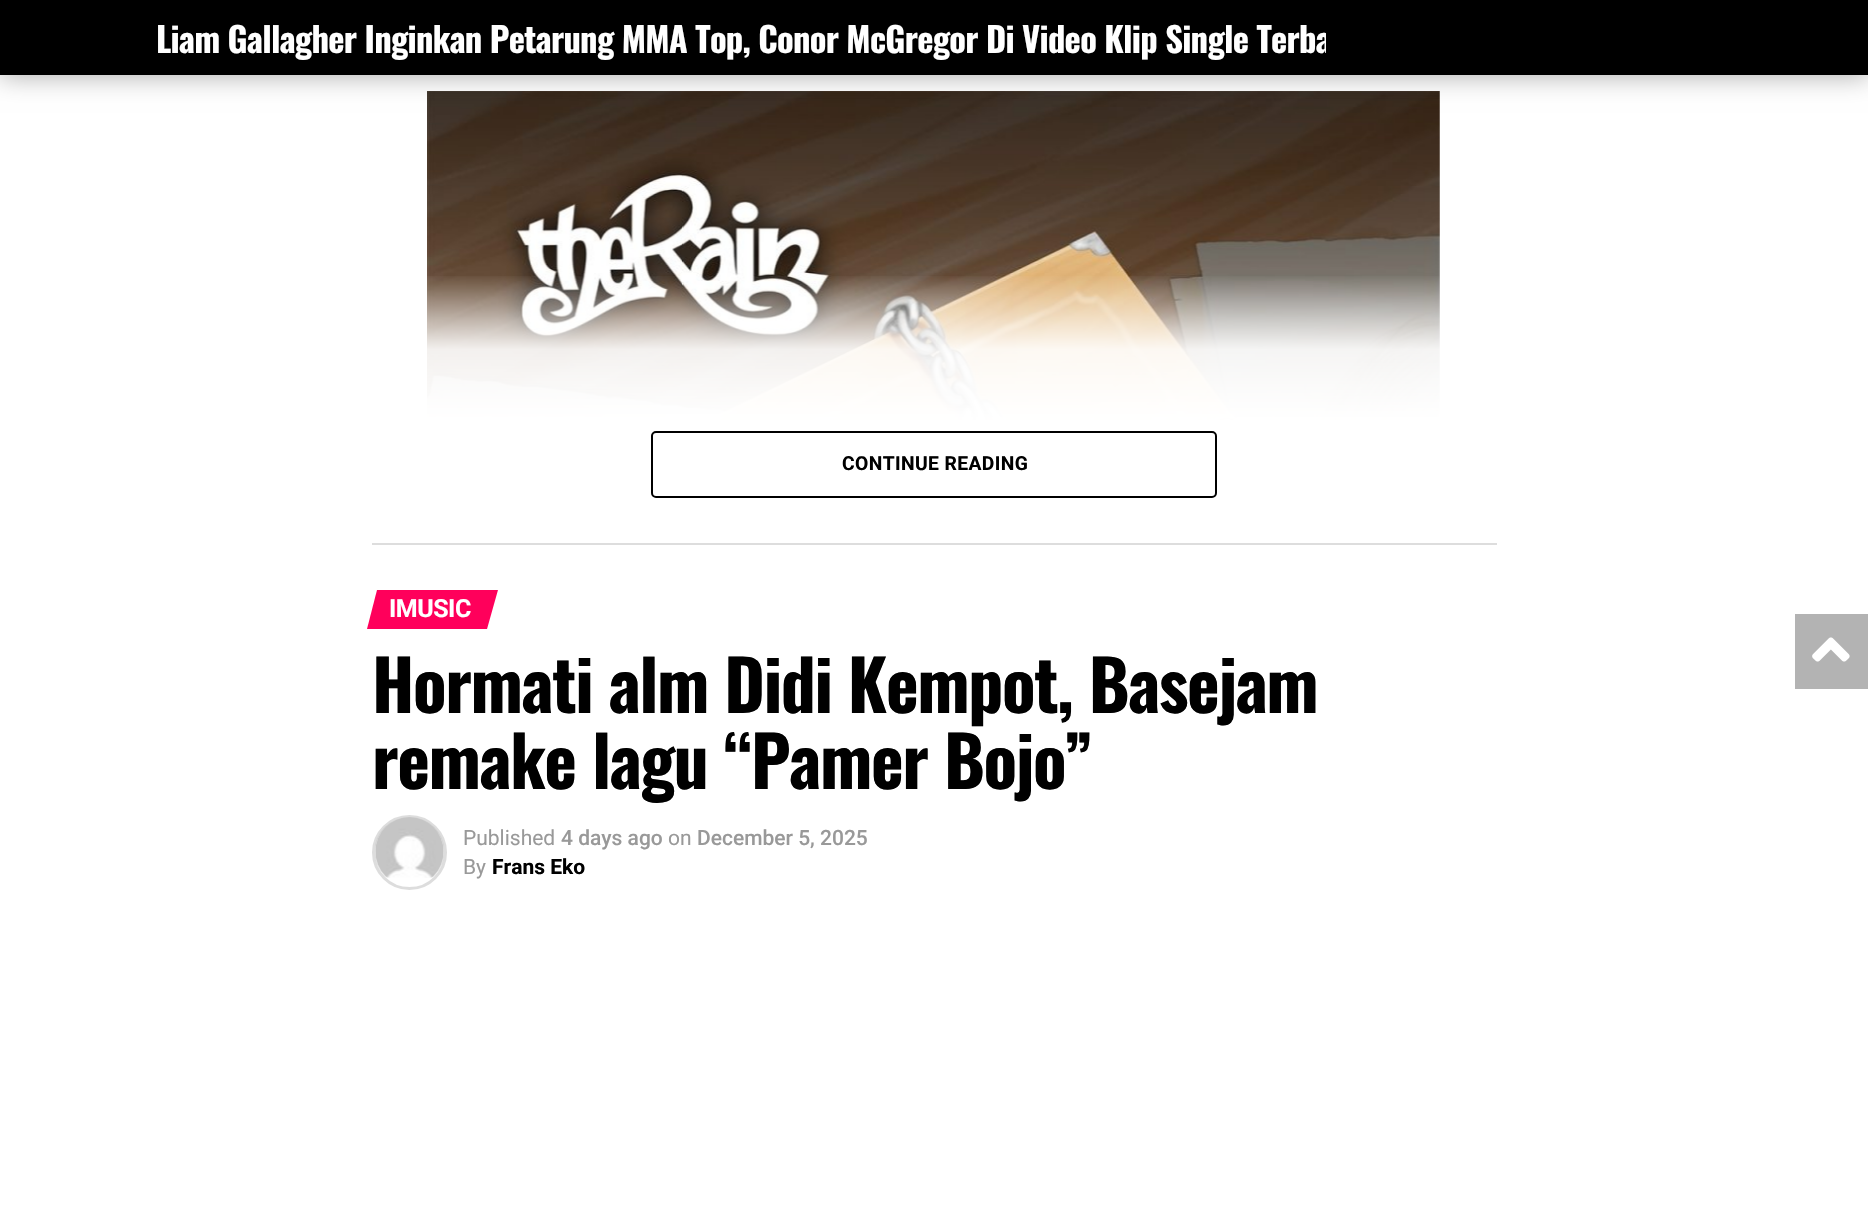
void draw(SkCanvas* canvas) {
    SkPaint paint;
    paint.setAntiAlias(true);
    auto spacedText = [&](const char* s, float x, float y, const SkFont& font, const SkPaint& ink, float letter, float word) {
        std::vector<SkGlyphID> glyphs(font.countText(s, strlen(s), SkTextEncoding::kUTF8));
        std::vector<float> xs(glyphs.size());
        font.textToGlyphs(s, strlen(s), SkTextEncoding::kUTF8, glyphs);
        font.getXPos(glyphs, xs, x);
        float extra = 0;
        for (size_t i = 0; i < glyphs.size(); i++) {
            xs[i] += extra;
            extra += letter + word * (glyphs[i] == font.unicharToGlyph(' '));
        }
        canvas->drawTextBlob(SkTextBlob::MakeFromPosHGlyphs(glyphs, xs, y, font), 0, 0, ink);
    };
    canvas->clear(0xFFFFFFFF);
    canvas->drawImageRect(SkImages::DeferredFromEncodedData(SkData::MakeFromFileName("img1.png")), SkRect::MakeXYWH(427, 91, 1013, 330), SkSamplingOptions());
    paint.setColor(0x4D000000);
    paint.setMaskFilter(SkMaskFilter::MakeBlur(kNormal_SkBlurStyle, 12));
    canvas->drawRect(SkRect::MakeXYWH(0, 2, 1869, 75), paint);
    paint.setMaskFilter(nullptr);
    paint.setColor(0xFF000000);
    canvas->drawRect(SkRect::MakeXYWH(0, 0, 1868, 75), paint);
    canvas->save();
    canvas->clipRect(SkRect::MakeXYWH(156, 15, 1170, 45));
    SkFont font1(fontMgr->matchFamilyStyle("Oswald", SkFontStyle::Bold()), 34.5f);
    font1.setSubpixel(true);
    paint.setColor(0xFFFFFFFF);
    spacedText("Liam Gallagher Inginkan Petarung MMA Top, Conor McGregor Di Video Klip Single Terba", 156, 53, font1, paint, -0.7f, 0);
    canvas->restore();
    {
        const SkColor colors[] = {0x00FFFFFF, 0xE6FFFFFF, 0xFFFFFFFF};
        const float stops[] = {0, 0.5f, 1};
        const SkPoint ends[] = {{935, 274}, {935, 425}};
        paint.setShader(SkGradientShader::MakeLinear(ends, colors, stops, 3, SkTileMode::kClamp));
        paint.setAlpha(255);
    }
    canvas->drawRect(SkRect::MakeXYWH(427, 276, 1013, 145), paint);
    paint.setStyle(SkPaint::kStroke_Style);
    paint.setStrokeWidth(2);
    paint.setShader(nullptr);
    paint.setColor(0xFF000000);
    canvas->drawRoundRect(SkRect::MakeXYWH(652, 432, 564, 65), 4, 4, paint);
    SkFont font2(fontMgr->matchFamilyStyle("Roboto", SkFontStyle::Bold()), 19.25f);
    font2.setSubpixel(true);
    paint.setStyle(SkPaint::kFill_Style);
    spacedText("CONTINUE READING", 842, 470, font2, paint, 0.4f, 0);
    paint.setColor(0xFFDDDDDD);
    canvas->drawRect(SkRect::MakeXYWH(372, 543, 1125, 2), paint);
    paint.setColor(0xFFFF005B);
    canvas->drawPath(SkPathBuilder().moveTo(377, 590).lineTo(498, 590).lineTo(487, 629).lineTo(367, 629).close().detach(), paint);
    SkFont font3(fontMgr->matchFamilyStyle("Roboto", SkFontStyle::Bold()), 25);
    font3.setSubpixel(true);
    paint.setColor(0xFFFFFFFF);
    spacedText("IMUSIC", 389, 617, font3, paint, -0.5f, 0);
    SkFont font4(fontMgr->matchFamilyStyle("Oswald", SkFontStyle::Bold()), 69.6f);
    font4.setSubpixel(true);
    paint.setColor(0xFF000000);
    spacedText("Hormati alm Didi Kempot, Basejam", 372, 713, font4, paint, -1.4f, 0);
    spacedText("remake lagu “Pamer Bojo”", 372, 789, font4, paint, -1.4f, 0);
    paint.setStyle(SkPaint::kStroke_Style);
    paint.setStrokeWidth(3);
    paint.setColor(0xFFDDDDDD);
    canvas->drawCircle(409.5f, 852.5f, 36, paint);
    canvas->drawImageRect(SkImages::DeferredFromEncodedData(SkData::MakeFromFileName("img2.png")), SkRect::MakeXYWH(375, 817, 69, 61), SkSamplingOptions());
    SkFont font5(fontMgr->matchFamilyStyle("Roboto", SkFontStyle::Normal()), 21);
    font5.setSubpixel(true);
    paint.setStyle(SkPaint::kFill_Style);
    paint.setColor(0xFF999999);
    canvas->drawString("Published", 463, 845, font5, paint);
    SkFont font6(fontMgr->matchFamilyStyle("Roboto", SkFontStyle(500, SkFontStyle::kNormal_Width, SkFontStyle::kUpright_Slant)), 21);
    font6.setSubpixel(true);
    canvas->drawString("4 days ago", 561, 845, font6, paint);
    canvas->drawString("on", 668, 845, font5, paint);
    canvas->drawString("December 5, 2025", 697, 845, font6, paint);
    canvas->drawString("By", 463, 874, font5, paint);
    SkFont font7(fontMgr->matchFamilyStyle("Roboto", SkFontStyle::Bold()), 21);
    font7.setSubpixel(true);
    paint.setColor(0xFF000000);
    canvas->drawString("Frans Eko", 492, 874, font7, paint);
    paint.setColor(0xFFB3B3B3);
    canvas->drawRect(SkRect::MakeXYWH(1795, 614, 73, 75), paint);
    canvas->drawImageRect(SkImages::DeferredFromEncodedData(SkData::MakeFromFileName("img3.png")), SkRect::MakeXYWH(1812, 637, 38, 25), SkSamplingOptions());
}
